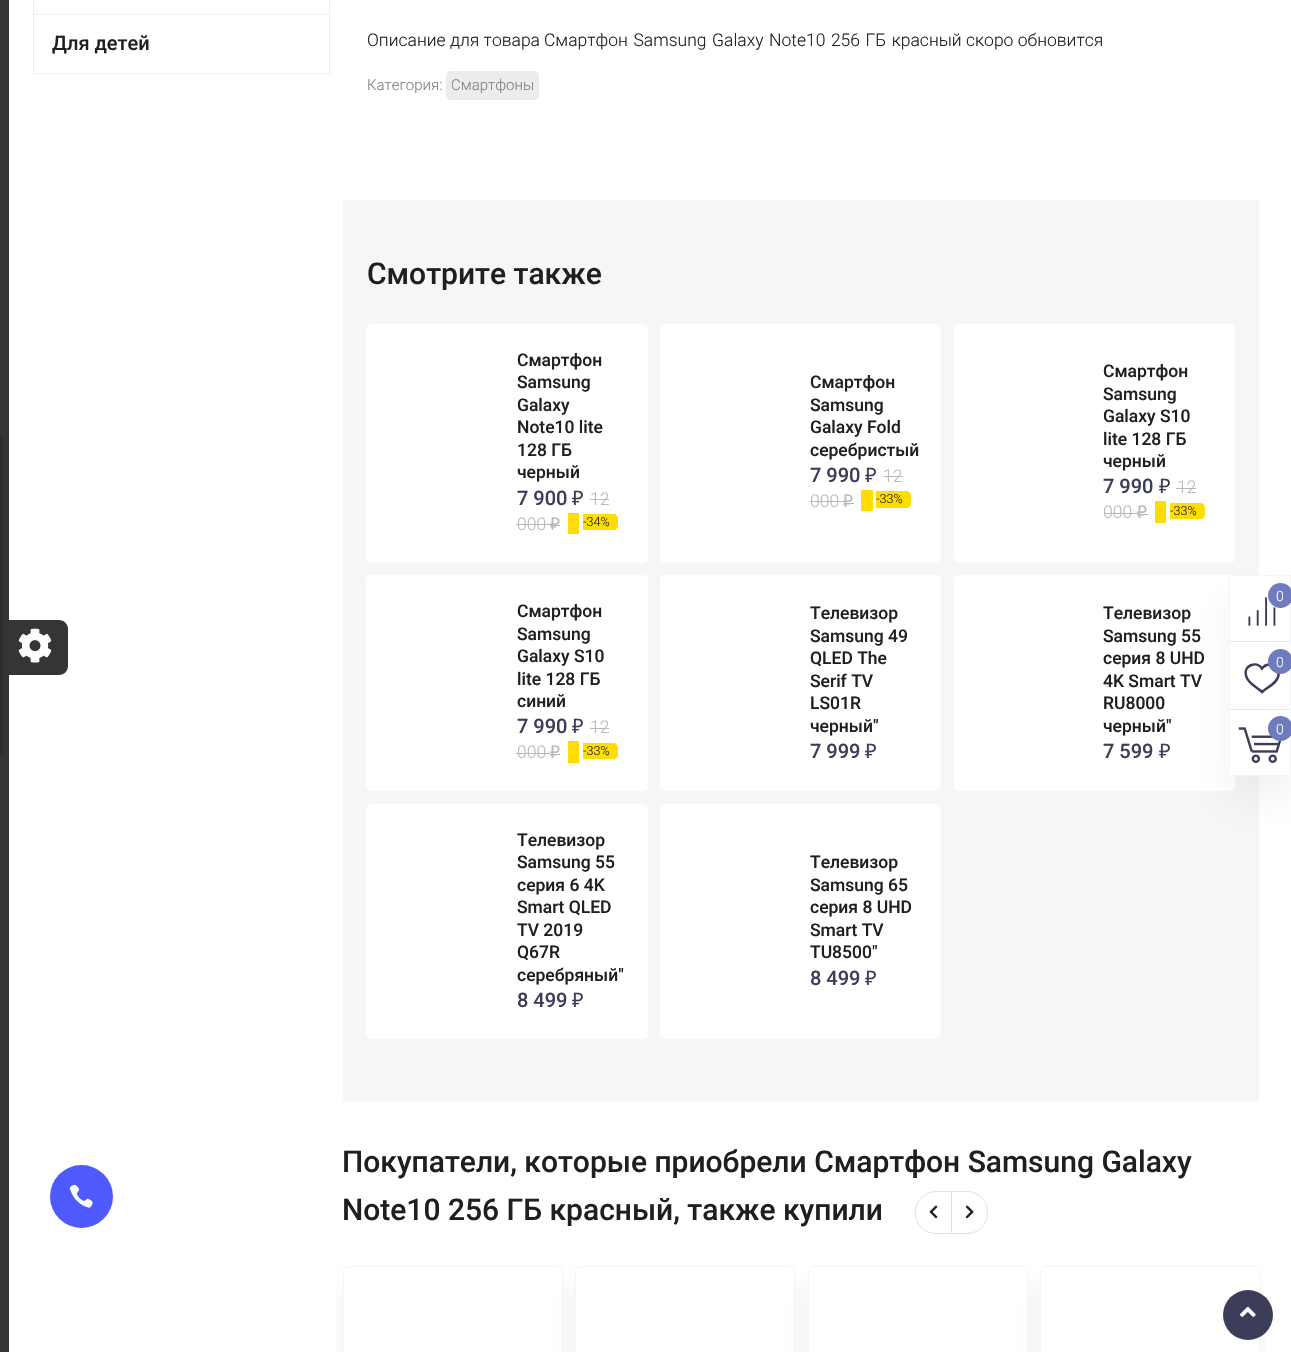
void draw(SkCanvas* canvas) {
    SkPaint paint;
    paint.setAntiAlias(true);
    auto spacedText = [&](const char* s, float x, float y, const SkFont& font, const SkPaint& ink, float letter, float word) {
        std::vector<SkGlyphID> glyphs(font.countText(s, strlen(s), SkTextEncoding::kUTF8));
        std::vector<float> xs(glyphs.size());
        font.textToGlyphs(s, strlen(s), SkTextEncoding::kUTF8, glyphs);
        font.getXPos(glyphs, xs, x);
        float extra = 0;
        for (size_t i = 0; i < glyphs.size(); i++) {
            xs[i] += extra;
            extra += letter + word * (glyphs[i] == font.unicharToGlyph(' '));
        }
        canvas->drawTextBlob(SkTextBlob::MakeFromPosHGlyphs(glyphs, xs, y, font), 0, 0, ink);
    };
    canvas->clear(0xFFFFFFFF);
    paint.setColor(0xF22A2A2A);
    canvas->drawRect(SkRect::MakeXYWH(0, 0, 9, 1352), paint);
    paint.setColor(0xFF2E2E2E);
    canvas->drawRect(SkRect::MakeXYWH(0, 435, 3, 320), paint);
    paint.setColor(0xF22A2A2A);
    canvas->drawPath(SkPathBuilder().moveTo(9, 620).lineTo(59, 620).cubicTo(64, 620, 68, 624, 68, 629).lineTo(68, 666).cubicTo(68, 671, 64, 675, 59, 675).lineTo(9, 675).close().detach(), paint);
    canvas->drawImageRect(SkImages::DeferredFromEncodedData(SkData::MakeFromFileName("img1.png")), SkRect::MakeXYWH(18, 628, 34, 35), SkSamplingOptions());
    paint.setColor(0xFF4E5AFE);
    canvas->drawCircle(81.5f, 1196.5f, 31.5f, paint);
    canvas->drawImageRect(SkImages::DeferredFromEncodedData(SkData::MakeFromFileName("img2.png")), SkRect::MakeXYWH(69, 1184, 24, 24), SkSamplingOptions());
    paint.setColor(0xFFEFEFEF);
    canvas->drawRect(SkRect::MakeXYWH(329, 0, 1, 74), paint);
    canvas->drawRect(SkRect::MakeXYWH(33, 0, 1, 74), paint);
    canvas->drawRect(SkRect::MakeXYWH(34, 14, 295, 1), paint);
    canvas->drawRect(SkRect::MakeXYWH(34, 73, 295, 1), paint);
    SkFont font1(fontMgr->matchFamilyStyle("Roboto", SkFontStyle(500, SkFontStyle::kNormal_Width, SkFontStyle::kUpright_Slant)), 20);
    font1.setSubpixel(true);
    paint.setColor(0xFF1F1F1F);
    canvas->drawString("Для детей", 52, 50, font1, paint);
    SkFont font2(fontMgr->matchFamilyStyle("Roboto", SkFontStyle(300, SkFontStyle::kNormal_Width, SkFontStyle::kUpright_Slant)), 17.5f);
    font2.setSubpixel(true);
    canvas->drawString("Описание для товара", 367, 46, font2, paint);
    spacedText("Смартфон Samsung Galaxy Note10 256 ГБ красный", 544, 46, font2, paint, 0, 1.25f);
    canvas->drawString("скоро обновится", 966, 46, font2, paint);
    SkFont font3(fontMgr->matchFamilyStyle("Roboto", SkFontStyle(300, SkFontStyle::kNormal_Width, SkFontStyle::kUpright_Slant)), 15);
    font3.setSubpixel(true);
    paint.setColor(0xFF808080);
    canvas->drawString("Категория:", 367, 90, font3, paint);
    paint.setColor(0xFFECECEC);
    canvas->drawRoundRect(SkRect::MakeXYWH(446, 71, 93, 29), 5, 5, paint);
    paint.setColor(0xFF808080);
    canvas->drawString("Смартфоны", 451, 90, font3, paint);
    paint.setColor(0xFFF6F6F9);
    canvas->drawRect(SkRect::MakeXYWH(343, 200, 916, 901), paint);
    SkFont font4(fontMgr->matchFamilyStyle("Roboto", SkFontStyle(500, SkFontStyle::kNormal_Width, SkFontStyle::kUpright_Slant)), 30);
    font4.setSubpixel(true);
    paint.setColor(0xFF1F1F1F);
    canvas->drawString("Смотрите также", 367, 284, font4, paint);
    paint.setColor(0xFFFFFFFF);
    canvas->drawRoundRect(SkRect::MakeXYWH(366, 324, 282, 239), 5, 5, paint);
    SkFont font5(fontMgr->matchFamilyStyle("Roboto", SkFontStyle(500, SkFontStyle::kNormal_Width, SkFontStyle::kUpright_Slant)), 17.5f);
    font5.setSubpixel(true);
    paint.setColor(0xFF1F1F1F);
    canvas->drawString("Смартфон", 517, 366, font5, paint);
    canvas->drawString("Samsung", 517, 388, font5, paint);
    canvas->drawString("Galaxy", 517, 411, font5, paint);
    canvas->drawString("Note10 lite", 517, 433, font5, paint);
    canvas->drawString("128 ГБ", 517, 456, font5, paint);
    canvas->drawString("черный", 517, 478, font5, paint);
    paint.setColor(0xFF3C3D59);
    canvas->drawString("7 900", 517, 505, font1, paint);
    SkFont font6(fontMgr->matchFamilyStyle("Noto Sans", SkFontStyle::Normal()), 20);
    font6.setSubpixel(true);
    canvas->drawString("₽", 572, 505, font6, paint);
    paint.setColor(0xFFB8B8B8);
    canvas->drawString("12", 590, 505, font2, paint);
    canvas->drawRect(SkRect::MakeXYWH(590, 499, 19, 1), paint);
    canvas->drawString("000", 517, 530, font2, paint);
    canvas->drawRect(SkRect::MakeXYWH(516, 524, 34, 1), paint);
    SkFont font7(fontMgr->matchFamilyStyle("Noto Sans", SkFontStyle::Normal()), 17.5f);
    font7.setSubpixel(true);
    canvas->drawString("₽", 550, 530, font7, paint);
    canvas->drawRect(SkRect::MakeXYWH(550, 525, 10, 1), paint);
    paint.setColor(0xFFFFDD00);
    canvas->drawPath(SkPathBuilder().moveTo(583, 514).lineTo(613, 514).cubicTo(616, 514, 618, 516, 618, 519).lineTo(618, 525).cubicTo(618, 528, 616, 530, 613, 530).lineTo(583, 530).close().detach(), paint);
    SkFont font8(fontMgr->matchFamilyStyle("Roboto", SkFontStyle(300, SkFontStyle::kNormal_Width, SkFontStyle::kUpright_Slant)), 12.5f);
    font8.setSubpixel(true);
    paint.setColor(0xFF1F1F1F);
    canvas->drawString("-34%", 583, 526, font8, paint);
    paint.setColor(0xFFFFDD00);
    canvas->drawRect(SkRect::MakeXYWH(568, 513, 11, 21), paint);
    paint.setColor(0xFFFFFFFF);
    canvas->drawRoundRect(SkRect::MakeXYWH(660, 324, 281, 239), 5, 5, paint);
    paint.setColor(0xFF1F1F1F);
    canvas->drawString("Смартфон", 810, 388, font5, paint);
    canvas->drawString("Samsung", 810, 411, font5, paint);
    canvas->drawString("Galaxy Fold", 810, 433, font5, paint);
    canvas->drawString("серебристый", 810, 456, font5, paint);
    paint.setColor(0xFF3C3D59);
    canvas->drawString("7 990", 810, 482, font1, paint);
    canvas->drawString("₽", 865, 482, font6, paint);
    paint.setColor(0xFFB8B8B8);
    canvas->drawString("12", 883, 482, font2, paint);
    canvas->drawRect(SkRect::MakeXYWH(884, 476, 19, 1), paint);
    canvas->drawString("000", 810, 507, font2, paint);
    canvas->drawRect(SkRect::MakeXYWH(810, 501, 34, 1), paint);
    canvas->drawString("₽", 843, 507, font7, paint);
    canvas->drawRect(SkRect::MakeXYWH(844, 503, 10, 1), paint);
    paint.setColor(0xFFFFDD00);
    canvas->drawPath(SkPathBuilder().moveTo(876, 491).lineTo(906, 491).cubicTo(909, 491, 911, 493, 911, 496).lineTo(911, 503).cubicTo(911, 506, 909, 508, 906, 508).lineTo(876, 508).close().detach(), paint);
    paint.setColor(0xFF1F1F1F);
    canvas->drawString("-33%", 876, 503, font8, paint);
    paint.setColor(0xFFFFDD00);
    canvas->drawRect(SkRect::MakeXYWH(861, 490, 12, 21), paint);
    paint.setColor(0xFFFFFFFF);
    canvas->drawRoundRect(SkRect::MakeXYWH(954, 324, 281, 239), 5, 5, paint);
    paint.setColor(0xFF1F1F1F);
    canvas->drawString("Смартфон", 1103, 377, font5, paint);
    canvas->drawString("Samsung", 1103, 400, font5, paint);
    canvas->drawString("Galaxy S10", 1103, 422, font5, paint);
    canvas->drawString("lite 128 ГБ", 1103, 445, font5, paint);
    canvas->drawString("черный", 1103, 467, font5, paint);
    paint.setColor(0xFF3C3D59);
    canvas->drawString("7 990", 1103, 493, font1, paint);
    canvas->drawString("₽", 1159, 493, font6, paint);
    paint.setColor(0xFFB8B8B8);
    canvas->drawString("12", 1177, 493, font2, paint);
    canvas->drawRect(SkRect::MakeXYWH(1176, 488, 20, 1), paint);
    canvas->drawString("000", 1103, 518, font2, paint);
    canvas->drawRect(SkRect::MakeXYWH(1104, 513, 34, 1), paint);
    canvas->drawString("₽", 1137, 518, font7, paint);
    canvas->drawRect(SkRect::MakeXYWH(1138, 514, 10, 1), paint);
    paint.setColor(0xFFFFDD00);
    canvas->drawPath(SkPathBuilder().moveTo(1170, 503).lineTo(1200, 503).cubicTo(1203, 503, 1205, 505, 1205, 508).lineTo(1205, 514).cubicTo(1205, 517, 1203, 519, 1200, 519).lineTo(1170, 519).close().detach(), paint);
    paint.setColor(0xFF1F1F1F);
    canvas->drawString("-33%", 1170, 515, font8, paint);
    paint.setColor(0xFFFFDD00);
    canvas->drawRect(SkRect::MakeXYWH(1155, 501, 11, 22), paint);
    paint.setColor(0xFFFFFFFF);
    canvas->drawRoundRect(SkRect::MakeXYWH(366, 575, 282, 216), 5, 5, paint);
    paint.setColor(0xFF1F1F1F);
    canvas->drawString("Смартфон", 517, 617, font5, paint);
    canvas->drawString("Samsung", 517, 640, font5, paint);
    canvas->drawString("Galaxy S10", 517, 662, font5, paint);
    canvas->drawString("lite 128 ГБ", 517, 685, font5, paint);
    canvas->drawString("синий", 517, 707, font5, paint);
    paint.setColor(0xFF3C3D59);
    canvas->drawString("7 990", 517, 733, font1, paint);
    canvas->drawString("₽", 572, 733, font6, paint);
    paint.setColor(0xFFB8B8B8);
    canvas->drawString("12", 590, 733, font2, paint);
    canvas->drawRect(SkRect::MakeXYWH(590, 728, 19, 1), paint);
    canvas->drawString("000", 517, 758, font2, paint);
    canvas->drawRect(SkRect::MakeXYWH(516, 753, 34, 1), paint);
    canvas->drawString("₽", 550, 758, font7, paint);
    canvas->drawRect(SkRect::MakeXYWH(550, 754, 10, 1), paint);
    paint.setColor(0xFFFFDD00);
    canvas->drawPath(SkPathBuilder().moveTo(583, 743).lineTo(613, 743).cubicTo(616, 743, 618, 745, 618, 748).lineTo(618, 754).cubicTo(618, 757, 616, 759, 613, 759).lineTo(583, 759).close().detach(), paint);
    paint.setColor(0xFF1F1F1F);
    canvas->drawString("-33%", 583, 755, font8, paint);
    paint.setColor(0xFFFFDD00);
    canvas->drawRect(SkRect::MakeXYWH(568, 741, 11, 22), paint);
    paint.setColor(0xFFFFFFFF);
    canvas->drawRoundRect(SkRect::MakeXYWH(660, 575, 281, 216), 5, 5, paint);
    paint.setColor(0xFF1F1F1F);
    canvas->drawString("Телевизор", 810, 619, font5, paint);
    canvas->drawString("Samsung 49", 810, 642, font5, paint);
    canvas->drawString("QLED The", 810, 664, font5, paint);
    canvas->drawString("Serif TV", 810, 687, font5, paint);
    canvas->drawString("LS01R", 810, 709, font5, paint);
    canvas->drawString("черный\"", 810, 732, font5, paint);
    paint.setColor(0xFF3C3D59);
    canvas->drawString("7 999", 810, 758, font1, paint);
    canvas->drawString("₽", 865, 758, font6, paint);
    paint.setColor(0xFFFFFFFF);
    canvas->drawRoundRect(SkRect::MakeXYWH(954, 575, 281, 216), 5, 5, paint);
    paint.setColor(0xFF1F1F1F);
    canvas->drawString("Телевизор", 1103, 619, font5, paint);
    canvas->drawString("Samsung 55", 1103, 642, font5, paint);
    canvas->drawString("серия 8 UHD", 1103, 664, font5, paint);
    canvas->drawString("4K Smart TV", 1103, 687, font5, paint);
    canvas->drawString("RU8000", 1103, 709, font5, paint);
    canvas->drawString("черный\"", 1103, 732, font5, paint);
    paint.setColor(0xFF3C3D59);
    canvas->drawString("7 599", 1103, 758, font1, paint);
    canvas->drawString("₽", 1159, 758, font6, paint);
    paint.setColor(0xFFFFFFFF);
    canvas->drawRoundRect(SkRect::MakeXYWH(366, 804, 282, 235), 5, 5, paint);
    paint.setColor(0xFF1F1F1F);
    canvas->drawString("Телевизор", 517, 846, font5, paint);
    canvas->drawString("Samsung 55", 517, 868, font5, paint);
    canvas->drawString("серия 6 4K", 517, 891, font5, paint);
    canvas->drawString("Smart QLED", 517, 913, font5, paint);
    canvas->drawString("TV 2019", 517, 936, font5, paint);
    canvas->drawString("Q67R", 517, 958, font5, paint);
    canvas->drawString("серебряный\"", 517, 981, font5, paint);
    paint.setColor(0xFF3C3D59);
    canvas->drawString("8 499", 517, 1007, font1, paint);
    canvas->drawString("₽", 572, 1007, font6, paint);
    paint.setColor(0xFFFFFFFF);
    canvas->drawRoundRect(SkRect::MakeXYWH(660, 804, 281, 235), 5, 5, paint);
    paint.setColor(0xFF1F1F1F);
    canvas->drawString("Телевизор", 810, 868, font5, paint);
    canvas->drawString("Samsung 65", 810, 891, font5, paint);
    canvas->drawString("серия 8 UHD", 810, 913, font5, paint);
    canvas->drawString("Smart TV", 810, 936, font5, paint);
    canvas->drawString("TU8500\"", 810, 958, font5, paint);
    paint.setColor(0xFF3C3D59);
    canvas->drawString("8 499", 810, 985, font1, paint);
    canvas->drawString("₽", 865, 985, font6, paint);
    paint.setColor(0xFF1F1F1F);
    canvas->drawString("Покупатели, которые приобрели Смартфон Samsung Galaxy", 342, 1172, font4, paint);
    canvas->drawString("Note10 256 ГБ красный, также купили", 342, 1220, font4, paint);
    paint.setStyle(SkPaint::kStroke_Style);
    paint.setStrokeWidth(1);
    paint.setColor(0xFFE0E0E0);
    canvas->drawPath(SkPathBuilder().moveTo(936, 1191.5f).lineTo(952.5f, 1191.5f).lineTo(952.5f, 1233.5f).lineTo(936, 1233.5f).cubicTo(924.5f, 1233.5f, 915.5f, 1224.5f, 915.5f, 1213).lineTo(915.5f, 1212).cubicTo(915.5f, 1200.5f, 924.5f, 1191.5f, 936, 1191.5f).close().detach(), paint);
    canvas->drawImageRect(SkImages::DeferredFromEncodedData(SkData::MakeFromFileName("img3.png")), SkRect::MakeXYWH(929, 1205, 9, 14), SkSamplingOptions());
    paint.setStyle(SkPaint::kFill_Style);
    paint.setColor(0xFFFFFFFF);
    canvas->drawPath(SkPathBuilder().moveTo(951.5f, 1191.5f).lineTo(967, 1191.5f).cubicTo(978.5f, 1191.5f, 987.5f, 1200.5f, 987.5f, 1212).lineTo(987.5f, 1213).cubicTo(987.5f, 1224.5f, 978.5f, 1233.5f, 967, 1233.5f).lineTo(951.5f, 1233.5f).close().detach(), paint);
    paint.setStyle(SkPaint::kStroke_Style);
    paint.setColor(0xFFE0E0E0);
    canvas->drawPath(SkPathBuilder().moveTo(951.5f, 1191.5f).lineTo(967, 1191.5f).cubicTo(978.5f, 1191.5f, 987.5f, 1200.5f, 987.5f, 1212).lineTo(987.5f, 1213).cubicTo(987.5f, 1224.5f, 978.5f, 1233.5f, 967, 1233.5f).lineTo(951.5f, 1233.5f).close().detach(), paint);
    canvas->drawImageRect(SkImages::DeferredFromEncodedData(SkData::MakeFromFileName("img4.png")), SkRect::MakeXYWH(965, 1205, 9, 14), SkSamplingOptions());
    canvas->save();
    canvas->clipRect(SkRect::MakeXYWH(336, 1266, 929, 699));
    paint.setStyle(SkPaint::kFill_Style);
    paint.setColor(0x1A7E7D76);
    paint.setMaskFilter(SkMaskFilter::MakeBlur(kNormal_SkBlurStyle, 12.5f));
    canvas->drawRoundRect(SkRect::MakeXYWH(343, 1285, 220, 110), 5, 5, paint);
    paint.setMaskFilter(nullptr);
    canvas->restore();
    paint.setColor(0xFFFFFFFF);
    canvas->drawRoundRect(SkRect::MakeXYWH(343.5f, 1266.5f, 219, 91), 4.5f, 4.5f, paint);
    paint.setStyle(SkPaint::kStroke_Style);
    paint.setColor(0xFFF5F5F5);
    canvas->drawRoundRect(SkRect::MakeXYWH(343.5f, 1266.5f, 219, 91), 4.5f, 4.5f, paint);
    paint.setStyle(SkPaint::kFill_Style);
    paint.setColor(0x1A7E7D76);
    paint.setMaskFilter(SkMaskFilter::MakeBlur(kNormal_SkBlurStyle, 12.5f));
    canvas->drawRoundRect(SkRect::MakeXYWH(575, 1285, 220, 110), 5, 5, paint);
    paint.setMaskFilter(nullptr);
    paint.setColor(0xFFFFFFFF);
    canvas->drawRoundRect(SkRect::MakeXYWH(575.5f, 1266.5f, 219, 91), 4.5f, 4.5f, paint);
    paint.setStyle(SkPaint::kStroke_Style);
    paint.setColor(0xFFF5F5F5);
    canvas->drawRoundRect(SkRect::MakeXYWH(575.5f, 1266.5f, 219, 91), 4.5f, 4.5f, paint);
    paint.setStyle(SkPaint::kFill_Style);
    paint.setColor(0x1A7E7D76);
    paint.setMaskFilter(SkMaskFilter::MakeBlur(kNormal_SkBlurStyle, 12.5f));
    canvas->drawRoundRect(SkRect::MakeXYWH(808, 1285, 220, 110), 5, 5, paint);
    paint.setMaskFilter(nullptr);
    paint.setColor(0xFFFFFFFF);
    canvas->drawRoundRect(SkRect::MakeXYWH(808.5f, 1266.5f, 219, 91), 4.5f, 4.5f, paint);
    paint.setStyle(SkPaint::kStroke_Style);
    paint.setColor(0xFFF5F5F5);
    canvas->drawRoundRect(SkRect::MakeXYWH(808.5f, 1266.5f, 219, 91), 4.5f, 4.5f, paint);
    canvas->save();
    canvas->clipRect(SkRect::MakeXYWH(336, 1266, 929, 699));
    paint.setStyle(SkPaint::kFill_Style);
    paint.setColor(0x1A7E7D76);
    paint.setMaskFilter(SkMaskFilter::MakeBlur(kNormal_SkBlurStyle, 12.5f));
    canvas->drawRoundRect(SkRect::MakeXYWH(1040, 1285, 220, 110), 5, 5, paint);
    paint.setMaskFilter(nullptr);
    canvas->restore();
    paint.setColor(0xFFFFFFFF);
    canvas->drawRoundRect(SkRect::MakeXYWH(1040.5f, 1266.5f, 219, 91), 4.5f, 4.5f, paint);
    paint.setStyle(SkPaint::kStroke_Style);
    paint.setColor(0xFFF5F5F5);
    canvas->drawRoundRect(SkRect::MakeXYWH(1040.5f, 1266.5f, 219, 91), 4.5f, 4.5f, paint);
    paint.setStyle(SkPaint::kFill_Style);
    paint.setColor(0x1A7E7D76);
    paint.setMaskFilter(SkMaskFilter::MakeBlur(kNormal_SkBlurStyle, 17));
    canvas->drawRoundRect(SkRect::MakeXYWH(1229, 599, 62, 201), 5, 5, paint);
    paint.setMaskFilter(nullptr);
    paint.setColor(0xFFFFFFFF);
    canvas->drawPath(SkPathBuilder().moveTo(1234, 575).lineTo(1291, 575).lineTo(1291, 776).lineTo(1234, 776).cubicTo(1231, 776, 1229, 774, 1229, 771).lineTo(1229, 580).cubicTo(1229, 577, 1231, 575, 1234, 575).close().detach(), paint);
    paint.setColor(0xFFF5F5F5);
    canvas->drawPath(SkPathBuilder(SkPathFillType::kEvenOdd).moveTo(1229, 580).lineTo(1229, 771).cubicTo(1229, 772, 1229, 773, 1230, 774).lineTo(1230, 577).close().moveTo(1234, 575).lineTo(1231, 576).lineTo(1290, 576).lineTo(1290, 775).lineTo(1231, 775).cubicTo(1232, 776, 1233, 776, 1234, 776).lineTo(1291, 776).lineTo(1291, 575).close().detach(), paint);
    paint.setColor(0xFFE8E8E8);
    canvas->drawRect(SkRect::MakeXYWH(1230, 641, 60, 1), paint);
    canvas->drawImageRect(SkImages::DeferredFromEncodedData(SkData::MakeFromFileName("img5.png")), SkRect::MakeXYWH(1248, 597, 28, 29), SkSamplingOptions());
    paint.setColor(0xFF6F7BBF);
    canvas->drawCircle(1280.5f, 595.5f, 12.5f, paint);
    SkFont font9(fontMgr->matchFamilyStyle("Roboto", SkFontStyle(300, SkFontStyle::kNormal_Width, SkFontStyle::kUpright_Slant)), 14);
    font9.setSubpixel(true);
    paint.setColor(0xFFFFFFFF);
    canvas->drawString("0", 1276, 601, font9, paint);
    paint.setColor(0xFFE8E8E8);
    canvas->drawRect(SkRect::MakeXYWH(1230, 709, 60, 1), paint);
    paint.setStyle(SkPaint::kStroke_Style);
    paint.setStrokeWidth(2.5f);
    paint.setColor(0xFF3C3D59);
    canvas->drawPath(SkPathBuilder().moveTo(1269.5f, 664.5f).cubicTo(1266.5f, 664.5f, 1264, 666, 1262, 668.5f).cubicTo(1256.5f, 660, 1243, 666, 1246, 675.5f).cubicTo(1247.5f, 683.5f, 1257, 687, 1262, 692).cubicTo(1267.5f, 687, 1277, 683.5f, 1278.5f, 675.5f).cubicTo(1279.5f, 671, 1276.5f, 666, 1272, 664.5f).close().detach(), paint);
    paint.setStyle(SkPaint::kFill_Style);
    paint.setColor(0xFF6F7BBF);
    canvas->drawCircle(1280.5f, 661.5f, 12.5f, paint);
    paint.setColor(0xFFFFFFFF);
    canvas->drawString("0", 1276, 667, font9, paint);
    canvas->drawImageRect(SkImages::DeferredFromEncodedData(SkData::MakeFromFileName("img6.png")), SkRect::MakeXYWH(1238, 727, 43, 36), SkSamplingOptions());
    paint.setColor(0xFF6F7BBF);
    canvas->drawCircle(1280.5f, 728.5f, 12.5f, paint);
    paint.setColor(0xFFFFFFFF);
    canvas->drawString("0", 1276, 734, font9, paint);
    paint.setColor(0xFF3C3D59);
    canvas->drawCircle(1248, 1315, 25, paint);
    canvas->drawImageRect(SkImages::DeferredFromEncodedData(SkData::MakeFromFileName("img7.png")), SkRect::MakeXYWH(1240, 1306, 16, 11), SkSamplingOptions());
}
